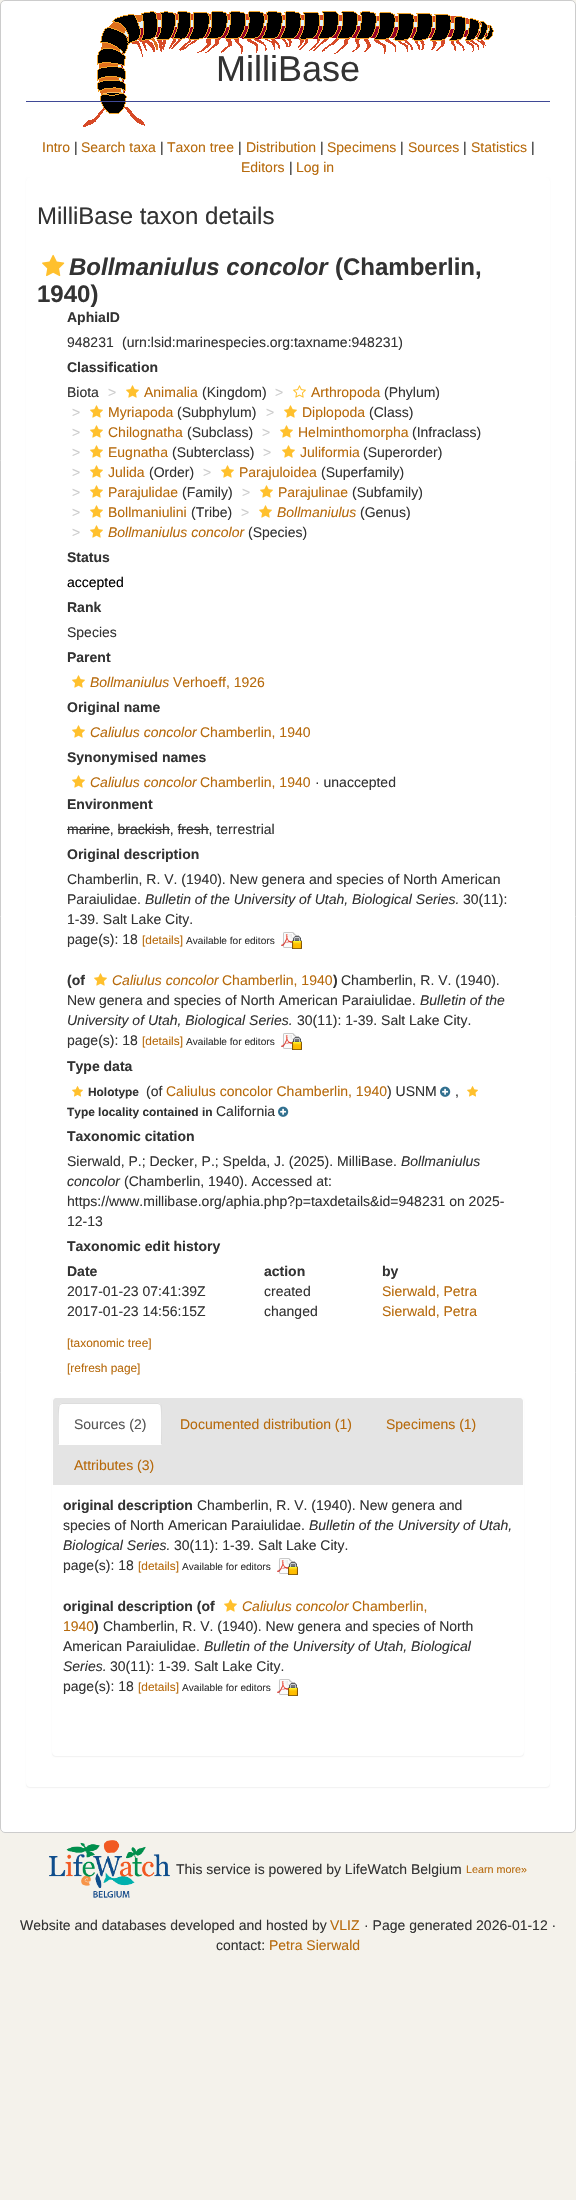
void draw(SkCanvas* canvas) {
    SkPaint paint;
    paint.setAntiAlias(true);
    canvas->clear(0xFFF4F2EB);
    paint.setColor(0xFFFFFFFF);
    canvas->drawRoundRect(SkRect::MakeXYWH(0.5f, 0.5f, 575, 1832), 4.5f, 4.5f, paint);
    paint.setStyle(SkPaint::kStroke_Style);
    paint.setStrokeWidth(1);
    paint.setColor(0xFFCCCCCC);
    canvas->drawRoundRect(SkRect::MakeXYWH(0.5f, 0.5f, 575, 1832), 4.5f, 4.5f, paint);
    canvas->drawImageRect(SkImages::DeferredFromEncodedData(SkData::MakeFromFileName("img1.png")), SkRect::MakeXYWH(83, 11, 411, 116), SkSamplingOptions());
    paint.setStyle(SkPaint::kFill_Style);
    paint.setColor(0xFF3F4996);
    canvas->drawRect(SkRect::MakeXYWH(26, 101, 524, 1), paint);
    SkFont font1(fontMgr->matchFamilyStyle("Liberation Sans", SkFontStyle::Normal()), 36);
    font1.setSubpixel(true);
    paint.setColor(0xFF333333);
    canvas->drawString("MilliBase", 216, 81, font1, paint);
    SkFont font2(fontMgr->matchFamilyStyle("Liberation Sans", SkFontStyle::Normal()), 14);
    font2.setSubpixel(true);
    paint.setColor(0xFFB76A0C);
    canvas->drawString("Intro", 42, 152, font2, paint);
    paint.setColor(0xFF333333);
    canvas->drawString("|", 74, 152, font2, paint);
    paint.setColor(0xFFB76A0C);
    canvas->drawString("Search taxa", 81, 152, font2, paint);
    paint.setColor(0xFF333333);
    canvas->drawString("|", 160, 152, font2, paint);
    paint.setColor(0xFFB76A0C);
    canvas->drawString("Taxon tree", 167, 152, font2, paint);
    paint.setColor(0xFF333333);
    canvas->drawString("|", 238, 152, font2, paint);
    paint.setColor(0xFFB76A0C);
    canvas->drawString("Distribution", 246, 152, font2, paint);
    paint.setColor(0xFF333333);
    canvas->drawString("|", 320, 152, font2, paint);
    paint.setColor(0xFFB76A0C);
    canvas->drawString("Specimens", 327, 152, font2, paint);
    paint.setColor(0xFF333333);
    canvas->drawString("|", 400, 152, font2, paint);
    paint.setColor(0xFFB76A0C);
    canvas->drawString("Sources", 408, 152, font2, paint);
    paint.setColor(0xFF333333);
    canvas->drawString("|", 463, 152, font2, paint);
    paint.setColor(0xFFB76A0C);
    canvas->drawString("Statistics", 471, 152, font2, paint);
    paint.setColor(0xFF333333);
    canvas->drawString("|", 531, 152, font2, paint);
    paint.setColor(0xFFB76A0C);
    canvas->drawString("Editors", 241, 172, font2, paint);
    paint.setColor(0xFF333333);
    canvas->drawString("|", 289, 172, font2, paint);
    paint.setColor(0xFFB76A0C);
    canvas->drawString("Log in", 296, 172, font2, paint);
    canvas->save();
    canvas->clipPath(SkPathBuilder(SkPathFillType::kEvenOdd).moveTo(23, 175).lineTo(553, 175).lineTo(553, 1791).lineTo(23, 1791).close().moveTo(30, 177).lineTo(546, 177).cubicTo(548, 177, 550, 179, 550, 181).lineTo(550, 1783).cubicTo(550, 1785, 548, 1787, 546, 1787).lineTo(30, 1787).cubicTo(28, 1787, 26, 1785, 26, 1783).lineTo(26, 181).cubicTo(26, 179, 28, 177, 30, 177).close().detach(), true);
    paint.setColor(0x0D000000);
    paint.setMaskFilter(SkMaskFilter::MakeBlur(kNormal_SkBlurStyle, 0.5f));
    canvas->drawRoundRect(SkRect::MakeXYWH(26, 178, 524, 1610), 4, 4, paint);
    paint.setMaskFilter(nullptr);
    canvas->restore();
    SkFont font3(fontMgr->matchFamilyStyle("Liberation Sans", SkFontStyle::Normal()), 24);
    font3.setSubpixel(true);
    paint.setColor(0xFF333333);
    canvas->drawString("MilliBase taxon details", 37, 224, font3, paint);
    canvas->drawImageRect(SkImages::DeferredFromEncodedData(SkData::MakeFromFileName("img2.png")), SkRect::MakeXYWH(42, 254, 23, 23), SkSamplingOptions());
    SkFont font4(fontMgr->matchFamilyStyle("Liberation Sans", SkFontStyle::BoldItalic()), 24);
    font4.setSubpixel(true);
    canvas->drawString("Bollmaniulus concolor", 69, 275, font4, paint);
    SkFont font5(fontMgr->matchFamilyStyle("Liberation Sans", SkFontStyle::Bold()), 24);
    font5.setSubpixel(true);
    canvas->drawString("(Chamberlin,", 335, 275, font5, paint);
    canvas->drawString("1940)", 37, 302, font5, paint);
    SkFont font6(fontMgr->matchFamilyStyle("Liberation Sans", SkFontStyle::Bold()), 14);
    font6.setSubpixel(true);
    canvas->drawString("AphiaID", 67, 322, font6, paint);
    canvas->drawString("948231", 67, 347, font2, paint);
    canvas->drawString("(urn:lsid:marinespecies.org:taxname:948231)", 122, 347, font2, paint);
    canvas->drawString("Classification", 67, 372, font6, paint);
    canvas->drawString("Biota", 67, 397, font2, paint);
    paint.setColor(0xFFCCCCCC);
    canvas->drawString(">", 108, 397, font2, paint);
    canvas->drawImageRect(SkImages::DeferredFromEncodedData(SkData::MakeFromFileName("img3.png")), SkRect::MakeXYWH(126, 385, 13, 13), SkSamplingOptions());
    paint.setColor(0xFFB76A0C);
    canvas->drawString("Animalia", 144, 397, font2, paint);
    paint.setColor(0xFF333333);
    canvas->drawString("(Kingdom)", 202, 397, font2, paint);
    paint.setColor(0xFFCCCCCC);
    canvas->drawString(">", 275, 397, font2, paint);
    canvas->drawImageRect(SkImages::DeferredFromEncodedData(SkData::MakeFromFileName("img4.png")), SkRect::MakeXYWH(293, 385, 13, 13), SkSamplingOptions());
    paint.setColor(0xFFB76A0C);
    canvas->drawString("Arthropoda", 311, 397, font2, paint);
    paint.setColor(0xFF333333);
    canvas->drawString("(Phylum)", 384, 397, font2, paint);
    paint.setColor(0xFFCCCCCC);
    canvas->drawString(">", 72, 417, font2, paint);
    canvas->drawImageRect(SkImages::DeferredFromEncodedData(SkData::MakeFromFileName("img3.png")), SkRect::MakeXYWH(90, 405, 13, 13), SkSamplingOptions());
    paint.setColor(0xFFB76A0C);
    canvas->drawString("Myriapoda", 108, 417, font2, paint);
    paint.setColor(0xFF333333);
    canvas->drawString("(Subphylum)", 177, 417, font2, paint);
    paint.setColor(0xFFCCCCCC);
    canvas->drawString(">", 266, 417, font2, paint);
    canvas->drawImageRect(SkImages::DeferredFromEncodedData(SkData::MakeFromFileName("img3.png")), SkRect::MakeXYWH(284, 405, 13, 13), SkSamplingOptions());
    paint.setColor(0xFFB76A0C);
    canvas->drawString("Diplopoda", 302, 417, font2, paint);
    paint.setColor(0xFF333333);
    canvas->drawString("(Class)", 369, 417, font2, paint);
    paint.setColor(0xFFCCCCCC);
    canvas->drawString(">", 72, 437, font2, paint);
    canvas->drawImageRect(SkImages::DeferredFromEncodedData(SkData::MakeFromFileName("img3.png")), SkRect::MakeXYWH(90, 425, 13, 13), SkSamplingOptions());
    paint.setColor(0xFFB76A0C);
    canvas->drawString("Chilognatha", 108, 437, font2, paint);
    paint.setColor(0xFF333333);
    canvas->drawString("(Subclass)", 187, 437, font2, paint);
    paint.setColor(0xFFCCCCCC);
    canvas->drawString(">", 262, 437, font2, paint);
    canvas->drawImageRect(SkImages::DeferredFromEncodedData(SkData::MakeFromFileName("img3.png")), SkRect::MakeXYWH(280, 425, 13, 13), SkSamplingOptions());
    paint.setColor(0xFFB76A0C);
    canvas->drawString("Helminthomorpha", 298, 437, font2, paint);
    paint.setColor(0xFF333333);
    canvas->drawString("(Infraclass)", 412, 437, font2, paint);
    paint.setColor(0xFFCCCCCC);
    canvas->drawString(">", 72, 457, font2, paint);
    canvas->drawImageRect(SkImages::DeferredFromEncodedData(SkData::MakeFromFileName("img3.png")), SkRect::MakeXYWH(90, 445, 13, 13), SkSamplingOptions());
    paint.setColor(0xFFB76A0C);
    canvas->drawString("Eugnatha", 108, 457, font2, paint);
    paint.setColor(0xFF333333);
    canvas->drawString("(Subterclass)", 172, 457, font2, paint);
    paint.setColor(0xFFCCCCCC);
    canvas->drawString(">", 263, 457, font2, paint);
    canvas->drawImageRect(SkImages::DeferredFromEncodedData(SkData::MakeFromFileName("img3.png")), SkRect::MakeXYWH(282, 445, 13, 13), SkSamplingOptions());
    paint.setColor(0xFFB76A0C);
    canvas->drawString("Juliformia", 300, 457, font2, paint);
    paint.setColor(0xFF333333);
    canvas->drawString("(Superorder)", 363, 457, font2, paint);
    paint.setColor(0xFFCCCCCC);
    canvas->drawString(">", 72, 477, font2, paint);
    canvas->drawImageRect(SkImages::DeferredFromEncodedData(SkData::MakeFromFileName("img3.png")), SkRect::MakeXYWH(90, 465, 13, 13), SkSamplingOptions());
    paint.setColor(0xFFB76A0C);
    canvas->drawString("Julida", 108, 477, font2, paint);
    paint.setColor(0xFF333333);
    canvas->drawString("(Order)", 149, 477, font2, paint);
    paint.setColor(0xFFCCCCCC);
    canvas->drawString(">", 203, 477, font2, paint);
    canvas->drawImageRect(SkImages::DeferredFromEncodedData(SkData::MakeFromFileName("img3.png")), SkRect::MakeXYWH(221, 465, 13, 13), SkSamplingOptions());
    paint.setColor(0xFFB76A0C);
    canvas->drawString("Parajuloidea", 239, 477, font2, paint);
    paint.setColor(0xFF333333);
    canvas->drawString("(Superfamily)", 321, 477, font2, paint);
    paint.setColor(0xFFCCCCCC);
    canvas->drawString(">", 72, 497, font2, paint);
    canvas->drawImageRect(SkImages::DeferredFromEncodedData(SkData::MakeFromFileName("img3.png")), SkRect::MakeXYWH(90, 485, 13, 13), SkSamplingOptions());
    paint.setColor(0xFFB76A0C);
    canvas->drawString("Parajulidae", 108, 497, font2, paint);
    paint.setColor(0xFF333333);
    canvas->drawString("(Family)", 182, 497, font2, paint);
    paint.setColor(0xFFCCCCCC);
    canvas->drawString(">", 242, 497, font2, paint);
    canvas->drawImageRect(SkImages::DeferredFromEncodedData(SkData::MakeFromFileName("img3.png")), SkRect::MakeXYWH(260, 485, 13, 13), SkSamplingOptions());
    paint.setColor(0xFFB76A0C);
    canvas->drawString("Parajulinae", 278, 497, font2, paint);
    paint.setColor(0xFF333333);
    canvas->drawString("(Subfamily)", 352, 497, font2, paint);
    paint.setColor(0xFFCCCCCC);
    canvas->drawString(">", 72, 517, font2, paint);
    canvas->drawImageRect(SkImages::DeferredFromEncodedData(SkData::MakeFromFileName("img3.png")), SkRect::MakeXYWH(90, 505, 13, 13), SkSamplingOptions());
    paint.setColor(0xFFB76A0C);
    canvas->drawString("Bollmaniulini", 108, 517, font2, paint);
    paint.setColor(0xFF333333);
    canvas->drawString("(Tribe)", 191, 517, font2, paint);
    paint.setColor(0xFFCCCCCC);
    canvas->drawString(">", 241, 517, font2, paint);
    canvas->drawImageRect(SkImages::DeferredFromEncodedData(SkData::MakeFromFileName("img3.png")), SkRect::MakeXYWH(259, 505, 13, 13), SkSamplingOptions());
    SkFont font7(fontMgr->matchFamilyStyle("Liberation Sans", SkFontStyle::Italic()), 14);
    font7.setSubpixel(true);
    paint.setColor(0xFFB76A0C);
    canvas->drawString("Bollmaniulus", 277, 517, font7, paint);
    paint.setColor(0xFF333333);
    canvas->drawString("(Genus)", 360, 517, font2, paint);
    paint.setColor(0xFFCCCCCC);
    canvas->drawString(">", 72, 537, font2, paint);
    canvas->drawImageRect(SkImages::DeferredFromEncodedData(SkData::MakeFromFileName("img3.png")), SkRect::MakeXYWH(90, 525, 13, 13), SkSamplingOptions());
    paint.setColor(0xFFB76A0C);
    canvas->drawString("Bollmaniulus concolor", 108, 537, font7, paint);
    paint.setColor(0xFF333333);
    canvas->drawString("(Species)", 248, 537, font2, paint);
    canvas->drawString("Status", 67, 562, font6, paint);
    paint.setColor(0xFF000000);
    canvas->drawString("accepted", 67, 587, font2, paint);
    paint.setColor(0xFF333333);
    canvas->drawString("Rank", 67, 612, font6, paint);
    canvas->drawString("Species", 67, 637, font2, paint);
    canvas->drawString("Parent", 67, 662, font6, paint);
    canvas->drawImageRect(SkImages::DeferredFromEncodedData(SkData::MakeFromFileName("img3.png")), SkRect::MakeXYWH(72, 675, 13, 13), SkSamplingOptions());
    paint.setColor(0xFFB76A0C);
    canvas->drawString("Bollmaniulus", 90, 687, font7, paint);
    canvas->drawString("Verhoeff, 1926", 173, 687, font2, paint);
    paint.setColor(0xFF333333);
    canvas->drawString("Original name", 67, 712, font6, paint);
    canvas->drawImageRect(SkImages::DeferredFromEncodedData(SkData::MakeFromFileName("img3.png")), SkRect::MakeXYWH(72, 725, 13, 13), SkSamplingOptions());
    paint.setColor(0xFFB76A0C);
    canvas->drawString("Caliulus concolor", 90, 737, font7, paint);
    canvas->drawString("Chamberlin, 1940", 200, 737, font2, paint);
    paint.setColor(0xFF333333);
    canvas->drawString("Synonymised names", 67, 762, font6, paint);
    canvas->drawImageRect(SkImages::DeferredFromEncodedData(SkData::MakeFromFileName("img3.png")), SkRect::MakeXYWH(72, 775, 13, 13), SkSamplingOptions());
    paint.setColor(0xFFB76A0C);
    canvas->drawString("Caliulus concolor", 90, 787, font7, paint);
    canvas->drawString("Chamberlin, 1940", 200, 787, font2, paint);
    paint.setColor(0xFF333333);
    canvas->drawString("· unaccepted", 315, 787, font2, paint);
    canvas->drawString("Environment", 67, 809, font6, paint);
    canvas->drawString("marine, brackish, fresh, terrestrial", 67, 834, font2, paint);
    canvas->drawRect(SkRect::MakeXYWH(67, 829, 43, 1), paint);
    canvas->drawRect(SkRect::MakeXYWH(118, 829, 52, 1), paint);
    canvas->drawRect(SkRect::MakeXYWH(178, 829, 31, 1), paint);
    canvas->drawString("Original description", 67, 859, font6, paint);
    canvas->drawString("Chamberlin, R. V. (1940). New genera and species of North American", 67, 884, font2, paint);
    canvas->drawString("Paraiulidae.", 67, 904, font2, paint);
    canvas->drawString("Bulletin of the University of Utah, Biological Series.", 145, 904, font7, paint);
    canvas->drawString("30(11):", 463, 904, font2, paint);
    canvas->drawString("1-39. Salt Lake City.", 67, 924, font2, paint);
    canvas->drawString("page(s): 18", 67, 944, font2, paint);
    SkFont font8(fontMgr->matchFamilyStyle("Liberation Sans", SkFontStyle::Normal()), 11.9f);
    font8.setSubpixel(true);
    paint.setColor(0xFFB76A0C);
    canvas->drawString("[details]", 142, 944, font8, paint);
    SkFont font9(fontMgr->matchFamilyStyle("Liberation Sans", SkFontStyle::Normal()), 10.1f);
    font9.setSubpixel(true);
    paint.setColor(0xFF333333);
    canvas->drawString("Available for editors", 186, 944, font9, paint);
    canvas->drawImageRect(SkImages::DeferredFromEncodedData(SkData::MakeFromFileName("img5.png")), SkRect::MakeXYWH(281, 932, 21, 17), SkSamplingOptions());
    canvas->drawString("(of", 67, 985, font6, paint);
    canvas->drawImageRect(SkImages::DeferredFromEncodedData(SkData::MakeFromFileName("img3.png")), SkRect::MakeXYWH(94, 973, 13, 13), SkSamplingOptions());
    paint.setColor(0xFFB76A0C);
    canvas->drawString("Caliulus concolor", 112, 985, font7, paint);
    canvas->drawString("Chamberlin, 1940", 222, 985, font2, paint);
    paint.setColor(0xFF333333);
    canvas->drawString(")", 333, 985, font6, paint);
    canvas->drawString("Chamberlin, R. V. (1940).", 341, 985, font2, paint);
    canvas->drawString("New genera and species of North American Paraiulidae.", 67, 1005, font2, paint);
    canvas->drawString("Bulletin of the", 420, 1005, font7, paint);
    canvas->drawString("University of Utah, Biological Series.", 67, 1025, font7, paint);
    canvas->drawString("30(11): 1-39. Salt Lake City.", 297, 1025, font2, paint);
    canvas->drawString("page(s): 18", 67, 1045, font2, paint);
    paint.setColor(0xFFB76A0C);
    canvas->drawString("[details]", 142, 1045, font8, paint);
    paint.setColor(0xFF333333);
    canvas->drawString("Available for editors", 186, 1045, font9, paint);
    canvas->drawImageRect(SkImages::DeferredFromEncodedData(SkData::MakeFromFileName("img5.png")), SkRect::MakeXYWH(281, 1033, 21, 17), SkSamplingOptions());
    canvas->drawString("Type data", 67, 1071, font6, paint);
    canvas->drawImageRect(SkImages::DeferredFromEncodedData(SkData::MakeFromFileName("img6.png")), SkRect::MakeXYWH(72, 1086, 11, 11), SkSamplingOptions());
    SkFont font10(fontMgr->matchFamilyStyle("Liberation Sans", SkFontStyle::Bold()), 11.9f);
    font10.setSubpixel(true);
    canvas->drawString("Holotype", 88, 1096, font10, paint);
    canvas->drawString("(of", 146, 1096, font2, paint);
    paint.setColor(0xFFB76A0C);
    canvas->drawString("Caliulus concolor Chamberlin, 1940", 166, 1096, font2, paint);
    paint.setColor(0xFF333333);
    canvas->drawString(") USNM", 387, 1096, font2, paint);
    canvas->drawImageRect(SkImages::DeferredFromEncodedData(SkData::MakeFromFileName("img7.png")), SkRect::MakeXYWH(440, 1086, 11, 11), SkSamplingOptions());
    canvas->drawString(",", 455, 1096, font2, paint);
    canvas->drawImageRect(SkImages::DeferredFromEncodedData(SkData::MakeFromFileName("img6.png")), SkRect::MakeXYWH(467, 1086, 11, 11), SkSamplingOptions());
    canvas->drawString("Type locality contained in", 67, 1116, font10, paint);
    canvas->drawString("California", 216, 1116, font2, paint);
    canvas->drawImageRect(SkImages::DeferredFromEncodedData(SkData::MakeFromFileName("img7.png")), SkRect::MakeXYWH(278, 1106, 11, 11), SkSamplingOptions());
    canvas->drawString("Taxonomic citation", 67, 1141, font6, paint);
    canvas->drawString("Sierwald, P.; Decker, P.; Spelda, J. (2025). MilliBase.", 67, 1166, font2, paint);
    canvas->drawString("Bollmaniulus", 401, 1166, font7, paint);
    canvas->drawString("concolor", 67, 1186, font7, paint);
    canvas->drawString("(Chamberlin, 1940). Accessed at:", 124, 1186, font2, paint);
    canvas->drawString("https://www.millibase.org/aphia.php?p=taxdetails&id=948231 on 2025-", 67, 1206, font2, paint);
    canvas->drawString("12-13", 67, 1226, font2, paint);
    canvas->drawString("Taxonomic edit history", 67, 1251, font6, paint);
    canvas->drawString("Date", 67, 1276, font6, paint);
    canvas->drawString("action", 264, 1276, font6, paint);
    canvas->drawString("by", 382, 1276, font6, paint);
    canvas->drawString("2017-01-23 07:41:39Z", 67, 1296, font2, paint);
    canvas->drawString("created", 264, 1296, font2, paint);
    paint.setColor(0xFFB76A0C);
    canvas->drawString("Sierwald, Petra", 382, 1296, font2, paint);
    paint.setColor(0xFF333333);
    canvas->drawString("2017-01-23 14:56:15Z", 67, 1316, font2, paint);
    canvas->drawString("changed", 264, 1316, font2, paint);
    paint.setColor(0xFFB76A0C);
    canvas->drawString("Sierwald, Petra", 382, 1316, font2, paint);
    canvas->drawString("[taxonomic tree]", 67, 1347, font8, paint);
    canvas->drawString("[refresh page]", 67, 1372, font8, paint);
    canvas->save();
    canvas->clipPath(SkPathBuilder(SkPathFillType::kEvenOdd).moveTo(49, 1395).lineTo(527, 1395).lineTo(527, 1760).lineTo(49, 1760).close().moveTo(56, 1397).lineTo(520, 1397).cubicTo(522, 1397, 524, 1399, 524, 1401).lineTo(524, 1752).cubicTo(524, 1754, 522, 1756, 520, 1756).lineTo(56, 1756).cubicTo(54, 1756, 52, 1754, 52, 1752).lineTo(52, 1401).cubicTo(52, 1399, 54, 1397, 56, 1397).close().detach(), true);
    paint.setColor(0x0D000000);
    paint.setMaskFilter(SkMaskFilter::MakeBlur(kNormal_SkBlurStyle, 0.5f));
    canvas->drawRoundRect(SkRect::MakeXYWH(52, 1398, 472, 359), 4, 4, paint);
    paint.setMaskFilter(nullptr);
    canvas->restore();
    paint.setColor(0xFFE4E4E4);
    canvas->drawPath(SkPathBuilder().moveTo(56, 1398).lineTo(520, 1398).cubicTo(521.5f, 1398, 523, 1399.5f, 523, 1401).lineTo(523, 1485).lineTo(53, 1485).lineTo(53, 1401).cubicTo(53, 1399.5f, 54.5f, 1398, 56, 1398).close().detach(), paint);
    paint.setColor(0xFFFFFFFF);
    canvas->drawPath(SkPathBuilder().moveTo(62, 1403).lineTo(158, 1403).cubicTo(160, 1403, 162, 1405, 162, 1407).lineTo(162, 1445).lineTo(58, 1445).lineTo(58, 1407).cubicTo(58, 1405, 60, 1403, 62, 1403).close().detach(), paint);
    paint.setColor(0xFFDDDDDD);
    canvas->drawPath(SkPathBuilder().moveTo(62, 1403).lineTo(59, 1404).lineTo(60, 1405).lineTo(62, 1404).lineTo(158, 1404).lineTo(160, 1405).lineTo(161, 1404).lineTo(158, 1403).close().detach(), paint);
    canvas->drawPath(SkPathBuilder().moveTo(162, 1445).lineTo(162, 1407).cubicTo(162, 1406, 162, 1405, 161, 1404).lineTo(160, 1405).cubicTo(162, 1407, 161, 1439, 161, 1444).close().detach(), paint);
    canvas->drawPath(SkPathBuilder().moveTo(58, 1445).lineTo(59, 1444).cubicTo(59, 1439, 58, 1407, 60, 1405).lineTo(59, 1404).lineTo(58, 1407).close().detach(), paint);
    paint.setColor(0xFF555555);
    canvas->drawString("Sources (2)", 74, 1429, font2, paint);
    paint.setColor(0xFFB76A0C);
    canvas->drawString("Documented distribution (1)", 180, 1429, font2, paint);
    canvas->drawString("Specimens (1)", 386, 1429, font2, paint);
    canvas->drawString("Attributes (3)", 74, 1470, font2, paint);
    paint.setColor(0xFF333333);
    canvas->drawString("original description", 63, 1510, font6, paint);
    canvas->drawString("Chamberlin, R. V. (1940). New genera and", 197, 1510, font2, paint);
    canvas->drawString("species of North American Paraiulidae.", 63, 1530, font2, paint);
    canvas->drawString("Bulletin of the University of Utah,", 309, 1530, font7, paint);
    canvas->drawString("Biological Series.", 63, 1550, font7, paint);
    canvas->drawString("30(11): 1-39. Salt Lake City.", 174, 1550, font2, paint);
    canvas->drawString("page(s): 18", 63, 1570, font2, paint);
    paint.setColor(0xFFB76A0C);
    canvas->drawString("[details]", 138, 1570, font8, paint);
    paint.setColor(0xFF333333);
    canvas->drawString("Available for editors", 182, 1570, font9, paint);
    canvas->drawImageRect(SkImages::DeferredFromEncodedData(SkData::MakeFromFileName("img5.png")), SkRect::MakeXYWH(277, 1558, 21, 17), SkSamplingOptions());
    canvas->drawString("original description (of", 63, 1611, font6, paint);
    canvas->drawImageRect(SkImages::DeferredFromEncodedData(SkData::MakeFromFileName("img3.png")), SkRect::MakeXYWH(224, 1599, 13, 13), SkSamplingOptions());
    paint.setColor(0xFFB76A0C);
    canvas->drawString("Caliulus concolor", 242, 1611, font7, paint);
    canvas->drawString("Chamberlin,", 352, 1611, font2, paint);
    canvas->drawString("1940", 63, 1631, font2, paint);
    paint.setColor(0xFF333333);
    canvas->drawString(")", 94, 1631, font6, paint);
    canvas->drawString("Chamberlin, R. V. (1940). New genera and species of North", 103, 1631, font2, paint);
    canvas->drawString("American Paraiulidae.", 63, 1651, font2, paint);
    canvas->drawString("Bulletin of the University of Utah, Biological", 204, 1651, font7, paint);
    canvas->drawString("Series.", 63, 1671, font7, paint);
    canvas->drawString("30(11): 1-39. Salt Lake City.", 110, 1671, font2, paint);
    canvas->drawString("page(s): 18", 63, 1691, font2, paint);
    paint.setColor(0xFFB76A0C);
    canvas->drawString("[details]", 138, 1691, font8, paint);
    paint.setColor(0xFF333333);
    canvas->drawString("Available for editors", 182, 1691, font9, paint);
    canvas->drawImageRect(SkImages::DeferredFromEncodedData(SkData::MakeFromFileName("img5.png")), SkRect::MakeXYWH(277, 1679, 21, 17), SkSamplingOptions());
    canvas->drawImageRect(SkImages::DeferredFromEncodedData(SkData::MakeFromFileName("img8.png")), SkRect::MakeXYWH(49, 1840, 121, 58), SkSamplingOptions());
    canvas->drawString("This service is powered by LifeWatch Belgium", 176, 1874, font2, paint);
    SkFont font11(fontMgr->matchFamilyStyle("Liberation Sans", SkFontStyle::Normal()), 10.75f);
    font11.setSubpixel(true);
    paint.setColor(0xFFB76A0C);
    canvas->drawString("Learn more»", 466, 1873, font11, paint);
    paint.setColor(0xFF333333);
    canvas->drawString("Website and databases developed and hosted by", 20, 1930, font2, paint);
    paint.setColor(0xFFB76A0C);
    canvas->drawString("VLIZ", 330, 1930, font2, paint);
    paint.setColor(0xFF333333);
    canvas->drawString("· Page generated 2026-01-12 ·", 364, 1930, font2, paint);
    canvas->drawString("contact:", 216, 1950, font2, paint);
    paint.setColor(0xFFB76A0C);
    canvas->drawString("Petra Sierwald", 269, 1950, font2, paint);
}
